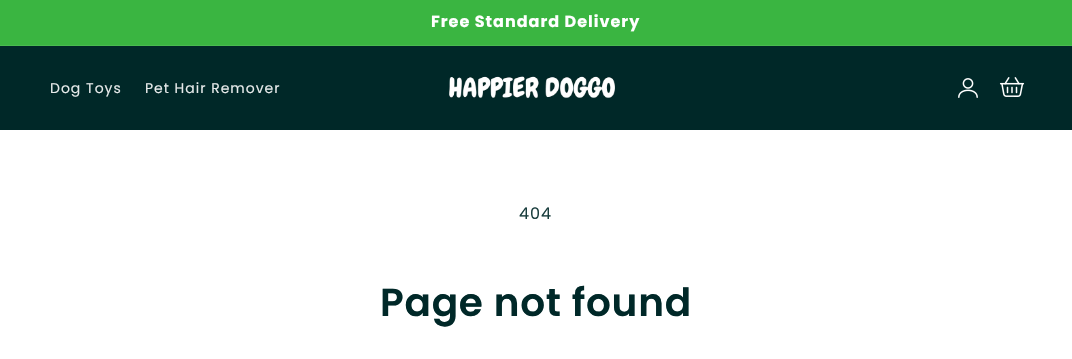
void draw(SkCanvas* canvas) {
    SkPaint paint;
    paint.setAntiAlias(true);
    auto spacedText = [&](const char* s, float x, float y, const SkFont& font, const SkPaint& ink, float letter, float word) {
        std::vector<SkGlyphID> glyphs(font.countText(s, strlen(s), SkTextEncoding::kUTF8));
        std::vector<float> xs(glyphs.size());
        font.textToGlyphs(s, strlen(s), SkTextEncoding::kUTF8, glyphs);
        font.getXPos(glyphs, xs, x);
        float extra = 0;
        for (size_t i = 0; i < glyphs.size(); i++) {
            xs[i] += extra;
            extra += letter + word * (glyphs[i] == font.unicharToGlyph(' '));
        }
        canvas->drawTextBlob(SkTextBlob::MakeFromPosHGlyphs(glyphs, xs, y, font), 0, 0, ink);
    };
    canvas->clear(0xFFFFFFFF);
    paint.setColor(0xFF3AB541);
    canvas->drawRect(SkRect::MakeXYWH(0, 0, 1072, 45), paint);
    paint.setColor(0xFF4ABB50);
    canvas->drawRect(SkRect::MakeXYWH(0, 45, 1072, 1), paint);
    SkFont font1(fontMgr->matchFamilyStyle("Poppins", SkFontStyle::Bold()), 16);
    font1.setSubpixel(true);
    paint.setColor(0xFFFFFFFF);
    spacedText("Free Standard Delivery", 431, 27, font1, paint, 1, 0);
    paint.setColor(0xFF002828);
    canvas->drawRect(SkRect::MakeXYWH(0, 46, 1072, 84), paint);
    SkFont font2(fontMgr->matchFamilyStyle("Poppins", SkFontStyle::Normal()), 14);
    font2.setSubpixel(true);
    paint.setColor(0xFFE6EAEA);
    spacedText("Dog Toys", 50, 93, font2, paint, 1, 0);
    spacedText("Pet Hair Remover", 145, 93, font2, paint, 1, 0);
    canvas->drawImageRect(SkImages::DeferredFromEncodedData(SkData::MakeFromFileName("img1.png")), SkRect::MakeXYWH(449, 76, 166, 23), SkSamplingOptions());
    canvas->drawImageRect(SkImages::DeferredFromEncodedData(SkData::MakeFromFileName("img2.png")), SkRect::MakeXYWH(958, 78, 20, 20), SkSamplingOptions());
    canvas->drawImageRect(SkImages::DeferredFromEncodedData(SkData::MakeFromFileName("img3.png")), SkRect::MakeXYWH(999, 77, 26, 20), SkSamplingOptions());
    SkFont font3(fontMgr->matchFamilyStyle("Poppins", SkFontStyle::Normal()), 16);
    font3.setSubpixel(true);
    paint.setColor(0xFF1A3E3E);
    spacedText("404", 519, 219, font3, paint, 1, 0);
    SkFont font4(fontMgr->matchFamilyStyle("Poppins", SkFontStyle(600, SkFontStyle::kNormal_Width, SkFontStyle::kUpright_Slant)), 39);
    font4.setSubpixel(true);
    paint.setColor(0xFF002828);
    spacedText("Page not found", 380, 316, font4, paint, 0.75f, 0);
}
